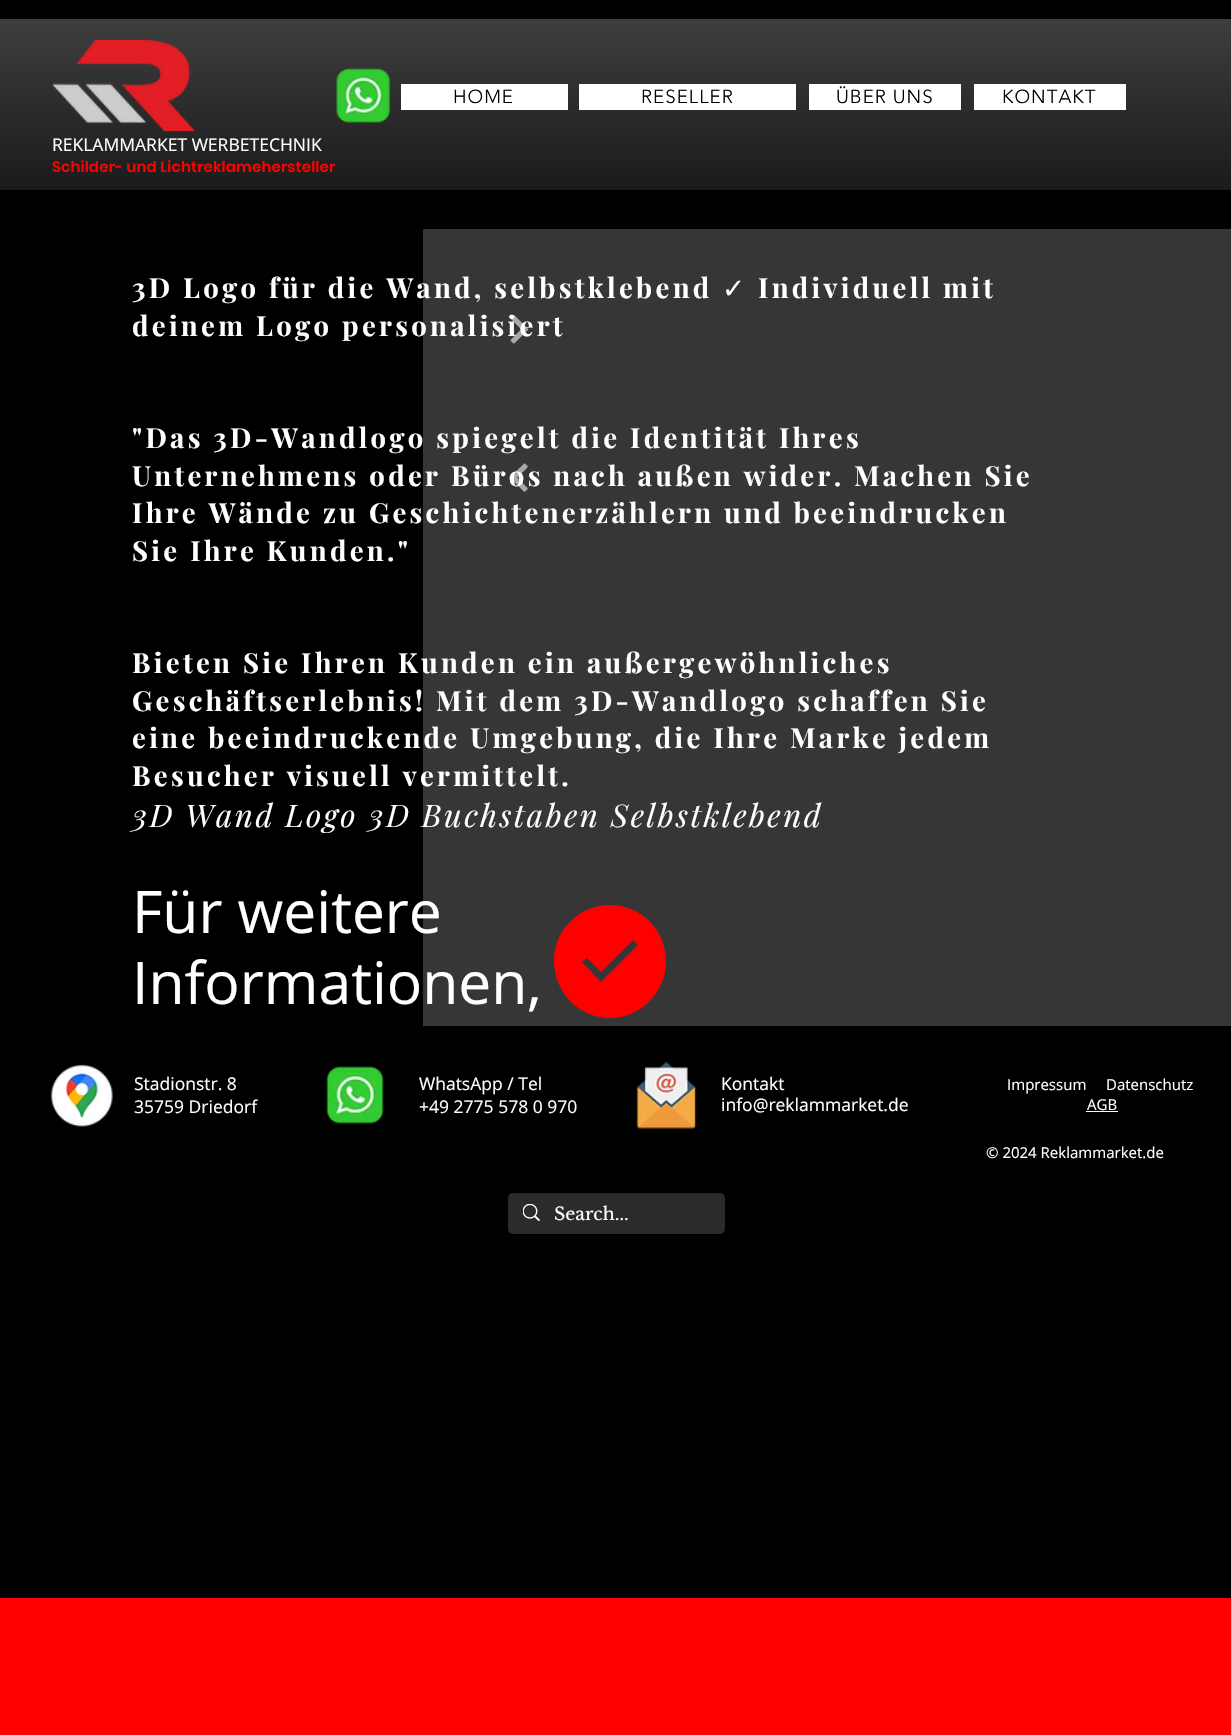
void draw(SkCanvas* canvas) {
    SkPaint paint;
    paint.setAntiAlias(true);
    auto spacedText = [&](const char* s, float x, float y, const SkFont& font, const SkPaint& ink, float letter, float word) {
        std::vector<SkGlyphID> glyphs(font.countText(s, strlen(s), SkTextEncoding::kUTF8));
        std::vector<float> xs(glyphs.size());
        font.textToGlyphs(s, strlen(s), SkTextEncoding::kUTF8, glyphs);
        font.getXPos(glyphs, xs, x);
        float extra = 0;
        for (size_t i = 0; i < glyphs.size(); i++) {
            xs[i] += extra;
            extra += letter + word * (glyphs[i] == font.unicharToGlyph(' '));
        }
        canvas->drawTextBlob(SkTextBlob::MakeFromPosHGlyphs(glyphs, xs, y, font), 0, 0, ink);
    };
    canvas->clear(0xFFFF0000);
    paint.setColor(0xFF000000);
    canvas->drawRect(SkRect::MakeXYWH(0, 0, 1231, 229), paint);
    canvas->drawImageRect(SkImages::DeferredFromEncodedData(SkData::MakeFromFileName("img1.png")), SkRect::MakeXYWH(0, 19, 1231, 171), SkSamplingOptions());
    canvas->drawImageRect(SkImages::DeferredFromEncodedData(SkData::MakeFromFileName("img2.png")), SkRect::MakeXYWH(52, 40, 143, 92), SkSamplingOptions());
    canvas->drawImageRect(SkImages::DeferredFromEncodedData(SkData::MakeFromFileName("img3.png")), SkRect::MakeXYWH(336, 68, 55, 55), SkSamplingOptions());
    paint.setColor(0xFFFFFFFF);
    canvas->drawRect(SkRect::MakeXYWH(401, 84, 167, 26), paint);
    SkFont font1(fontMgr->matchFamilyStyle("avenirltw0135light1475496", SkFontStyle(300, SkFontStyle::kNormal_Width, SkFontStyle::kUpright_Slant)), 18.75f);
    font1.setSubpixel(true);
    paint.setColor(0xFF000000);
    spacedText("HOME", 453, 103, font1, paint, 1, 0);
    paint.setColor(0xFFFFFFFF);
    canvas->drawRect(SkRect::MakeXYWH(579, 84, 217, 26), paint);
    paint.setColor(0xFF000000);
    spacedText("RESELLER", 641, 103, font1, paint, 1, 0);
    paint.setColor(0xFFFFFFFF);
    canvas->drawRect(SkRect::MakeXYWH(809, 84, 152, 26), paint);
    paint.setColor(0xFF000000);
    spacedText("ÜBER UNS", 836, 103, font1, paint, 1, 0);
    paint.setColor(0xFFFFFFFF);
    canvas->drawRect(SkRect::MakeXYWH(974, 84, 152, 26), paint);
    paint.setColor(0xFF000000);
    spacedText("KONTAKT", 1002, 103, font1, paint, 1, 0);
    SkFont font2(fontMgr->matchFamilyStyle("Open Sans", SkFontStyle::Normal()), 17.5f);
    font2.setSubpixel(true);
    paint.setColor(0xFFFFFFFF);
    canvas->drawString("REKLAMMARKET WERBETECHNIK", 52, 151, font2, paint);
    SkFont font3(fontMgr->matchFamilyStyle("Poppins", SkFontStyle(600, SkFontStyle::kNormal_Width, SkFontStyle::kUpright_Slant)), 15);
    font3.setSubpixel(true);
    paint.setColor(0xFFFF0000);
    spacedText("Schilder- und Lichtreklamehersteller", 52, 172, font3, paint, 0.15f, 0);
    paint.setColor(0xFF363636);
    canvas->drawRect(SkRect::MakeXYWH(423, 229, 808, 797), paint);
    paint.setColor(0xFF000000);
    canvas->drawRect(SkRect::MakeXYWH(0, 229, 423, 797), paint);
    canvas->drawImageRect(SkImages::DeferredFromEncodedData(SkData::MakeFromFileName("img4.png")), SkRect::MakeXYWH(510, 315, 19, 29), SkSamplingOptions());
    canvas->drawImageRect(SkImages::DeferredFromEncodedData(SkData::MakeFromFileName("img5.png")), SkRect::MakeXYWH(510, 463, 18, 29), SkSamplingOptions());
    SkFont font4(fontMgr->matchFamilyStyle("Playfair Display", SkFontStyle::Bold()), 27.5f);
    font4.setSubpixel(true);
    paint.setColor(0xFFFFFFFF);
    spacedText("3D Logo für die Wand, selbstklebend", 132, 298, font4, paint, 3.3f, 0);
    SkFont font5(fontMgr->matchFamilyStyle("DejaVu Sans", SkFontStyle::Normal()), 27.5f);
    font5.setSubpixel(true);
    spacedText("✓", 722, 298, font5, paint, 3.3f, 0);
    spacedText("Individuell mit", 758, 298, font4, paint, 3.3f, 0);
    spacedText("deinem Logo personalisiert", 132, 336, font4, paint, 3.3f, 0);
    spacedText("\"Das 3D-Wandlogo spiegelt die Identität Ihres", 132, 448, font4, paint, 3.3f, 0);
    spacedText("Unternehmens oder Büros nach außen wider. Machen Sie", 132, 486, font4, paint, 3.3f, 0);
    spacedText("Ihre Wände zu Geschichtenerzählern und beeindrucken", 132, 523, font4, paint, 3.3f, 0);
    spacedText("Sie Ihre Kunden.\"", 132, 561, font4, paint, 3.3f, 0);
    spacedText("Bieten Sie Ihren Kunden ein außergewöhnliches", 132, 673, font4, paint, 3.3f, 0);
    spacedText("Geschäftserlebnis! Mit dem 3D-Wandlogo schaffen Sie", 132, 711, font4, paint, 3.3f, 0);
    spacedText("eine beeindruckende Umgebung, die Ihre Marke jedem", 132, 748, font4, paint, 3.3f, 0);
    spacedText("Besucher visuell vermittelt.", 132, 786, font4, paint, 3.3f, 0);
    SkFont font6(fontMgr->matchFamilyStyle("Playfair Display", SkFontStyle::Italic()), 31.25f);
    font6.setSubpixel(true);
    spacedText("3D Wand Logo 3D Buchstaben Selbstklebend", 132, 827, font6, paint, 2.5f, 0);
    SkFont font7(fontMgr->matchFamilyStyle("Open Sans", SkFontStyle::Normal()), 58.75f);
    font7.setSubpixel(true);
    canvas->drawString("Für weitere", 132, 933, font7, paint);
    canvas->drawString("Informationen,", 132, 1004, font7, paint);
    paint.setColor(0xFFFF0000);
    canvas->drawPath(SkPathBuilder(SkPathFillType::kEvenOdd).moveTo(601, 982).lineTo(582, 962).lineTo(587, 958).lineTo(601, 972).lineTo(633, 940).lineTo(638, 945).close().moveTo(610, 905).cubicTo(579, 905, 554, 930, 554, 961).cubicTo(554, 992, 579, 1018, 610, 1018).cubicTo(641, 1018, 666, 992, 666, 961).cubicTo(666, 930, 641, 905, 610, 905).close().detach(), paint);
    paint.setColor(0xFF000000);
    canvas->drawRect(SkRect::MakeXYWH(0, 1026, 1231, 572), paint);
    canvas->drawImageRect(SkImages::DeferredFromEncodedData(SkData::MakeFromFileName("img6.png")), SkRect::MakeXYWH(51, 1064, 62, 63), SkSamplingOptions());
    paint.setColor(0xFFFFFFFF);
    canvas->drawString("Stadionstr. 8", 134, 1090, font2, paint);
    canvas->drawString("35759 Driedorf", 134, 1113, font2, paint);
    canvas->drawImageRect(SkImages::DeferredFromEncodedData(SkData::MakeFromFileName("img7.png")), SkRect::MakeXYWH(326, 1066, 58, 58), SkSamplingOptions());
    canvas->drawString("WhatsApp / Tel", 419, 1090, font2, paint);
    canvas->drawString("+49 2775 578 0 970", 419, 1113, font2, paint);
    canvas->drawImageRect(SkImages::DeferredFromEncodedData(SkData::MakeFromFileName("img8.png")), SkRect::MakeXYWH(636, 1061, 61, 68), SkSamplingOptions());
    canvas->drawString("Kontakt", 721, 1090, font2, paint);
    canvas->drawString("info@reklammarket.de", 721, 1111, font2, paint);
    SkFont font8(fontMgr->matchFamilyStyle("Open Sans", SkFontStyle::Normal()), 15);
    font8.setSubpixel(true);
    canvas->drawString("Impressum", 1007, 1090, font8, paint);
    canvas->drawString("Datenschutz", 1106, 1090, font8, paint);
    canvas->drawString("AGB", 1087, 1110, font8, paint);
    canvas->drawRect(SkRect::MakeXYWH(1086, 1111, 32, 1), paint);
    canvas->drawString("© 2024 Reklammarket.de", 986, 1158, font8, paint);
    paint.setColor(0xFF2B2B2B);
    canvas->drawRoundRect(SkRect::MakeXYWH(508, 1193, 217, 41), 5, 5, paint);
    canvas->drawImageRect(SkImages::DeferredFromEncodedData(SkData::MakeFromFileName("img9.png")), SkRect::MakeXYWH(523, 1204, 17, 17), SkSamplingOptions());
    SkFont font9(fontMgr->matchFamilyStyle("Libre Baskerville", SkFontStyle::Normal()), 17.5f);
    font9.setSubpixel(true);
    paint.setColor(0xFFFFFFFF);
    canvas->drawString("Search...", 554, 1220, font9, paint);
}
